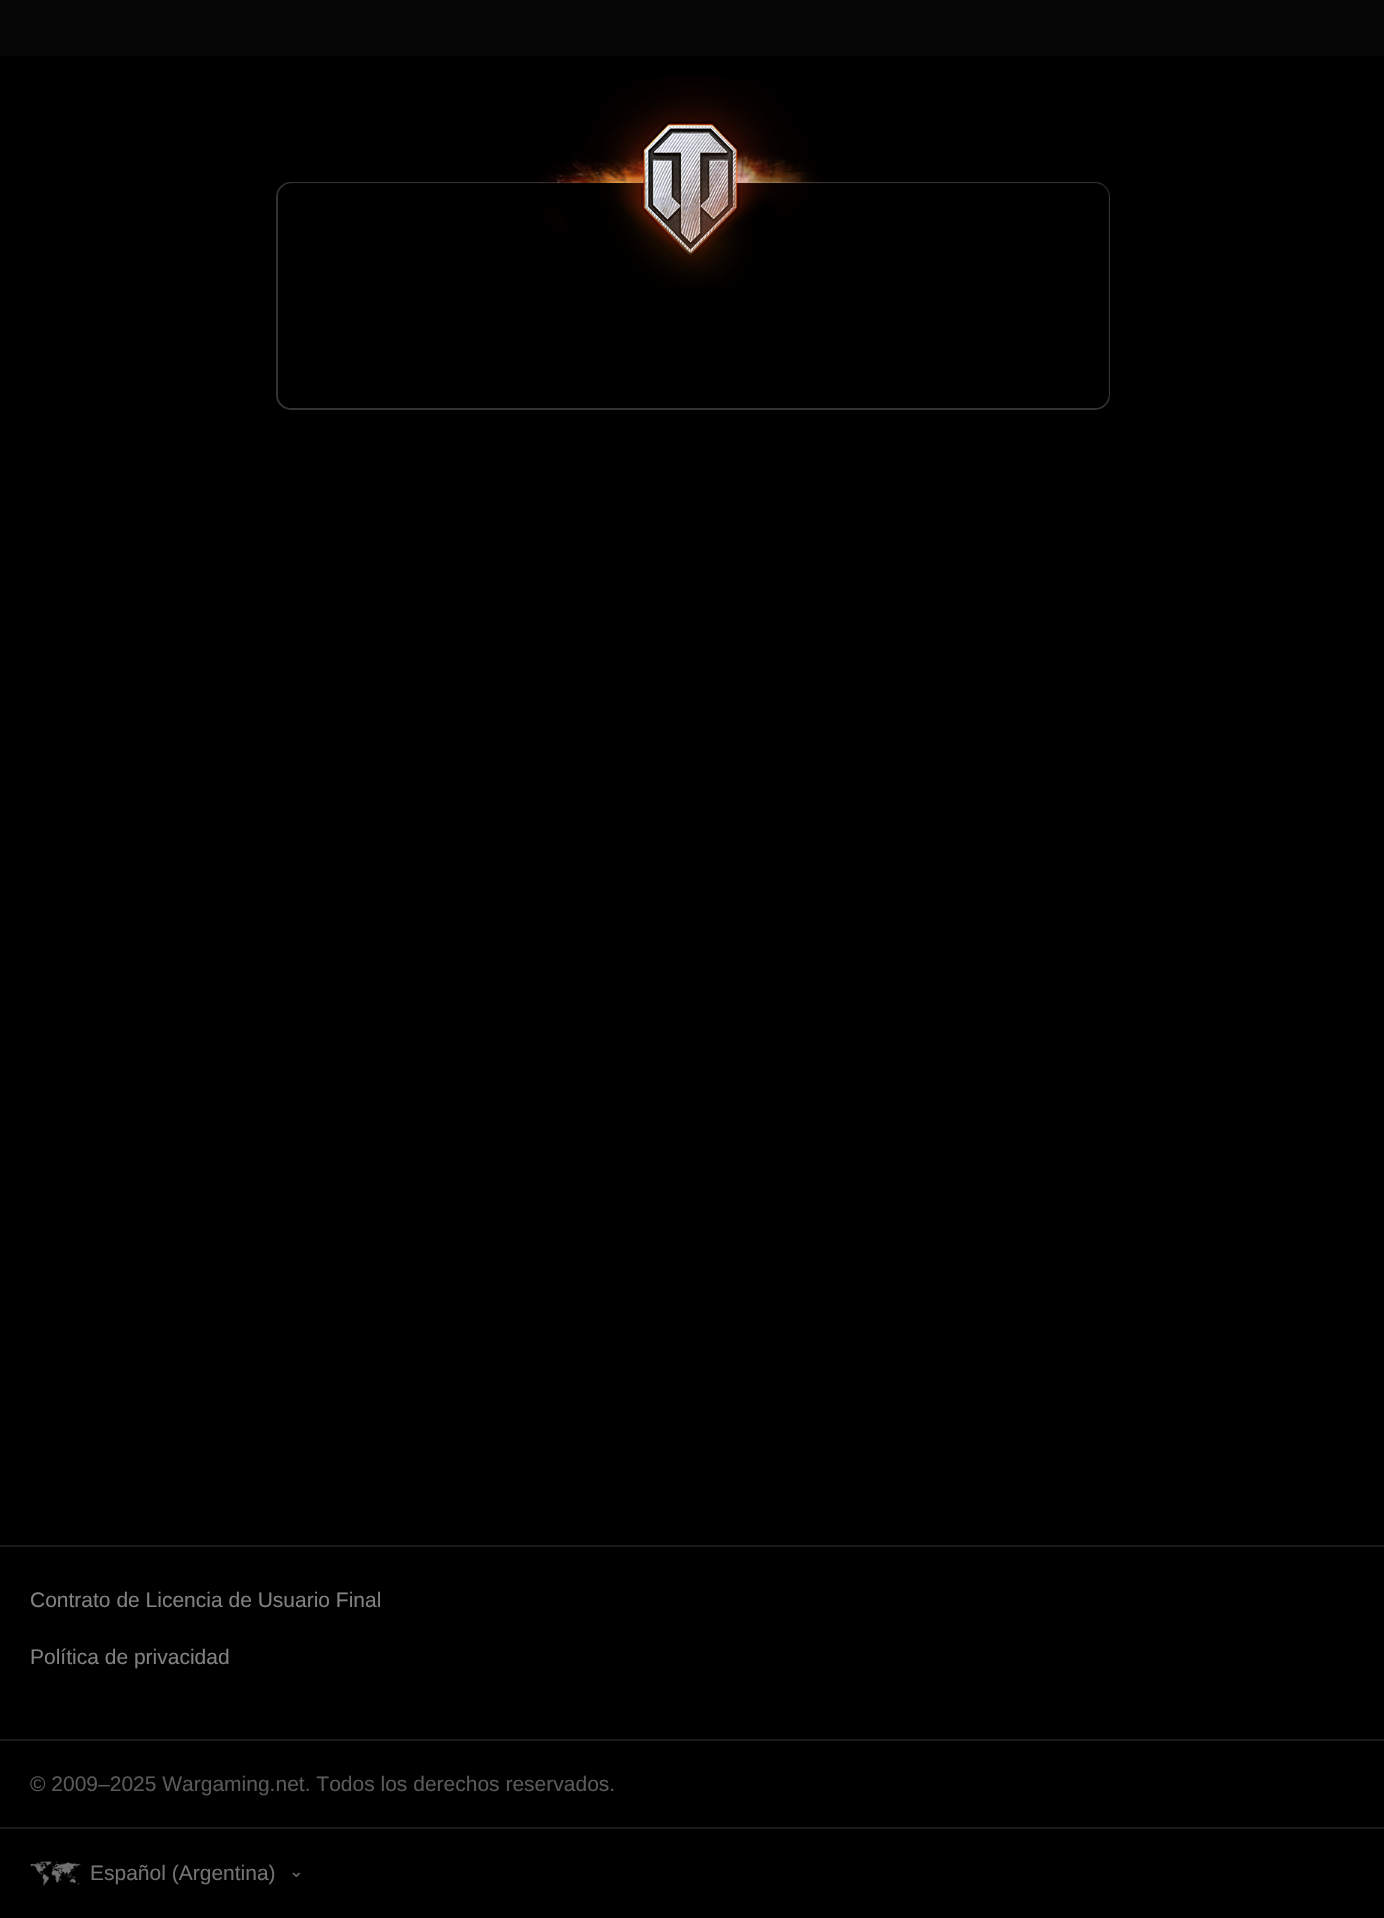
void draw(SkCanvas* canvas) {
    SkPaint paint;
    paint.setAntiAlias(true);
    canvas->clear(0xFF000000);
    paint.setColor(0xFF050505);
    canvas->drawRect(SkRect::MakeXYWH(0, 0, 1384, 56), paint);
    paint.setStyle(SkPaint::kStroke_Style);
    paint.setStrokeWidth(2);
    paint.setColor(0xFF333333);
    canvas->drawRoundRect(SkRect::MakeXYWH(277, 183, 832, 226), 14, 14, paint);
    paint.setStyle(SkPaint::kFill_Style);
    paint.setColor(0xE6000000);
    canvas->drawRoundRect(SkRect::MakeXYWH(278, 183, 831, 225), 14, 14, paint);
    canvas->drawImageRect(SkImages::DeferredFromEncodedData(SkData::MakeFromFileName("img1.png")), SkRect::MakeXYWH(533, 76, 289, 211), SkSamplingOptions());
    paint.setColor(0xFF1A1A1A);
    canvas->drawRect(SkRect::MakeXYWH(0, 1545, 1384, 2), paint);
    SkFont font1(fontMgr->matchFamilyStyle("Liberation Sans", SkFontStyle::Normal()), 21);
    font1.setSubpixel(true);
    paint.setColor(0xFF808181);
    canvas->drawString("Contrato de Licencia de Usuario Final", 30, 1607, font1, paint);
    canvas->drawString("Política de privacidad", 30, 1664, font1, paint);
    paint.setColor(0xFF1A1A1A);
    canvas->drawRect(SkRect::MakeXYWH(0, 1739, 1384, 2), paint);
    paint.setColor(0xFF595959);
    canvas->drawString("© 2009–2025 Wargaming.net. Todos los derechos reservados.", 30, 1791, font1, paint);
    paint.setColor(0xFF1A1A1A);
    canvas->drawRect(SkRect::MakeXYWH(0, 1827, 1384, 2), paint);
    canvas->drawImageRect(SkImages::DeferredFromEncodedData(SkData::MakeFromFileName("img2.png")), SkRect::MakeXYWH(30, 1861, 51, 25), SkSamplingOptions());
    paint.setColor(0xFF737373);
    canvas->drawString("Español (Argentina)", 90, 1880, font1, paint);
    canvas->drawImageRect(SkImages::DeferredFromEncodedData(SkData::MakeFromFileName("img3.png")), SkRect::MakeXYWH(292, 1872, 9, 6), SkSamplingOptions());
}
